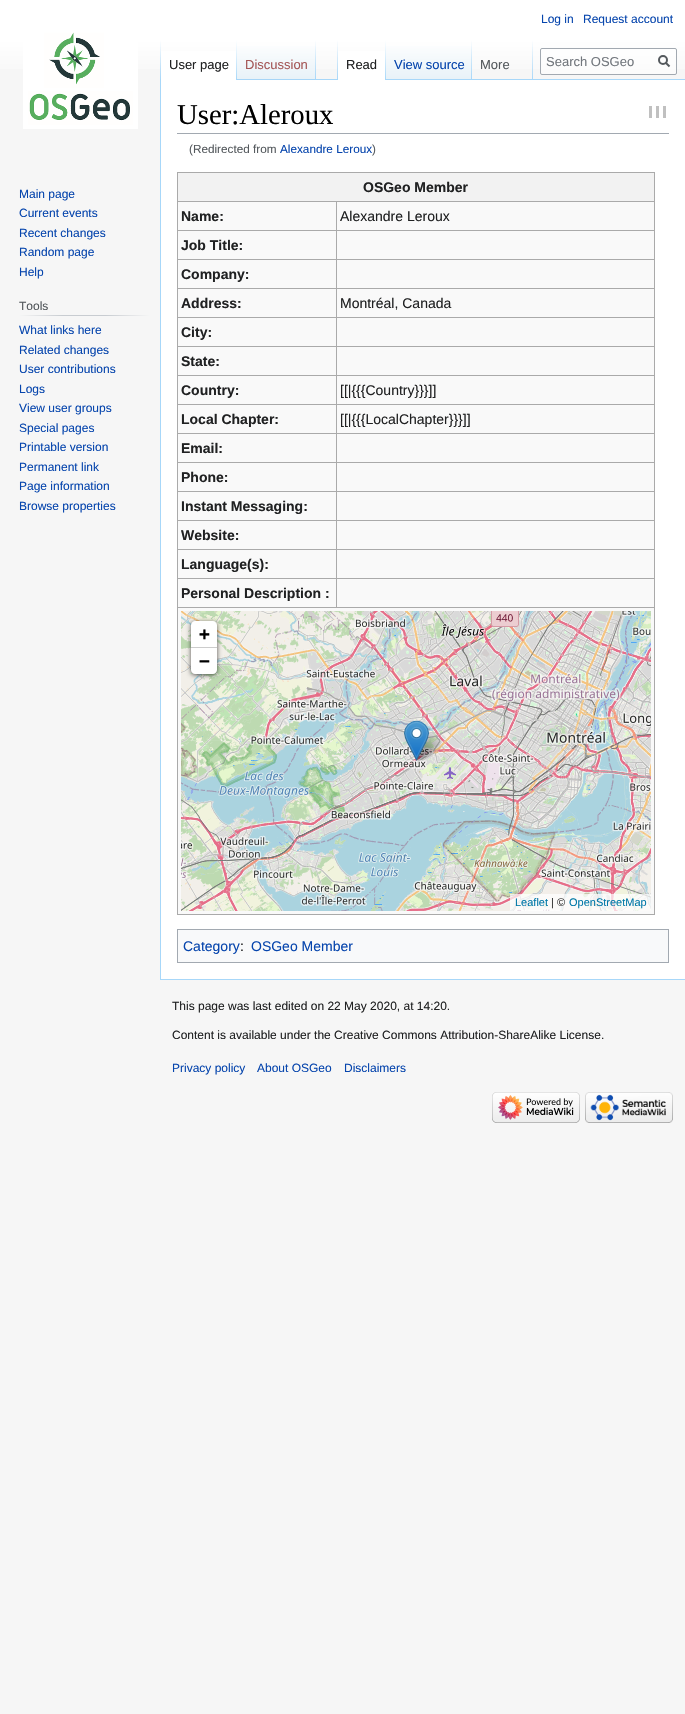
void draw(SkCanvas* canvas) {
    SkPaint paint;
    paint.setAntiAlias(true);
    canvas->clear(0xFFF6F6F6);
    {
        const SkColor colors[] = {0xFFFFFFFF, 0xFFF6F6F6};
        const float stops[] = {0.5f, 1};
        const SkPoint ends[] = {{343, 0}, {343, 80}};
        paint.setShader(SkGradientShader::MakeLinear(ends, colors, stops, 2, SkTileMode::kClamp));
        paint.setAlpha(255);
    }
    canvas->drawRect(SkRect::MakeXYWH(0, 0, 685, 69), paint);
    SkFont font1(fontMgr->matchFamilyStyle("Liberation Sans", SkFontStyle::Normal()), 12);
    font1.setSubpixel(true);
    paint.setShader(nullptr);
    paint.setColor(0xFF0645AD);
    canvas->drawString("Log in", 541, 23, font1, paint);
    canvas->drawString("Request account", 583, 23, font1, paint);
    paint.setColor(0xFFA7D7F9);
    canvas->drawRect(SkRect::MakeXYWH(160, 979, 525, 1), paint);
    canvas->drawRect(SkRect::MakeXYWH(160, 79, 1, 901), paint);
    {
        const SkColor colors[] = {0x00A7D7F9, 0xFFA7D7F9};
        const float stops[] = {0, 1};
        const SkPoint ends[] = {{161, 40}, {161, 80}};
        paint.setShader(SkGradientShader::MakeLinear(ends, colors, stops, 2, SkTileMode::kClamp));
        paint.setAlpha(255);
    }
    canvas->drawRect(SkRect::MakeXYWH(160, 40, 1, 40), paint);
    paint.setShader(nullptr);
    paint.setColor(0xFFFFFFFF);
    canvas->drawRect(SkRect::MakeXYWH(161, 51, 75, 29), paint);
    {
        const SkColor colors[] = {0xFFFFFFFF, 0xFFA7D7F9};
        const float stops[] = {0, 1};
        const SkPoint ends[] = {{237, 40}, {237, 80}};
        paint.setShader(SkGradientShader::MakeLinear(ends, colors, stops, 2, SkTileMode::kClamp));
        paint.setAlpha(255);
    }
    canvas->drawRect(SkRect::MakeXYWH(236, 40, 1, 40), paint);
    SkFont font2(fontMgr->matchFamilyStyle("Liberation Sans", SkFontStyle::Normal()), 13);
    font2.setSubpixel(true);
    paint.setShader(nullptr);
    paint.setColor(0xFF202122);
    canvas->drawString("User page", 169, 69, font2, paint);
    {
        const SkColor colors[] = {0xFF77C1F6, 0xFFE8F2F8, 0xFFFFFFFF};
        const float stops[] = {0, 0.03f, 1};
        const SkPoint ends[] = {{277, 80}, {277, 40}};
        paint.setShader(SkGradientShader::MakeLinear(ends, colors, stops, 3, SkTileMode::kClamp));
        paint.setAlpha(255);
    }
    canvas->drawRect(SkRect::MakeXYWH(237, 46, 79, 34), paint);
    {
        const SkColor colors[] = {0x00A7D7F9, 0xFFA7D7F9};
        const float stops[] = {0, 1};
        const SkPoint ends[] = {{316, 40}, {316, 80}};
        paint.setShader(SkGradientShader::MakeLinear(ends, colors, stops, 2, SkTileMode::kClamp));
        paint.setAlpha(255);
    }
    canvas->drawRect(SkRect::MakeXYWH(315, 40, 1, 40), paint);
    paint.setShader(nullptr);
    paint.setColor(0xFFA55858);
    canvas->drawString("Discussion", 245, 69, font2, paint);
    paint.setColor(0xFFA7D7F9);
    canvas->drawRect(SkRect::MakeXYWH(316, 79, 369, 1), paint);
    {
        const SkColor colors[] = {0x00A7D7F9, 0xFFA7D7F9};
        const float stops[] = {0, 1};
        const SkPoint ends[] = {{338, 40}, {338, 80}};
        paint.setShader(SkGradientShader::MakeLinear(ends, colors, stops, 2, SkTileMode::kClamp));
        paint.setAlpha(255);
    }
    canvas->drawRect(SkRect::MakeXYWH(337, 40, 1, 40), paint);
    paint.setShader(nullptr);
    paint.setColor(0xFFFFFFFF);
    canvas->drawRect(SkRect::MakeXYWH(338, 51, 47, 29), paint);
    {
        const SkColor colors[] = {0xFFFFFFFF, 0xFFA7D7F9};
        const float stops[] = {0, 1};
        const SkPoint ends[] = {{386, 40}, {386, 80}};
        paint.setShader(SkGradientShader::MakeLinear(ends, colors, stops, 2, SkTileMode::kClamp));
        paint.setAlpha(255);
    }
    canvas->drawRect(SkRect::MakeXYWH(385, 40, 1, 40), paint);
    paint.setShader(nullptr);
    paint.setColor(0xFF202122);
    canvas->drawString("Read", 346, 69, font2, paint);
    {
        const SkColor colors[] = {0xFF77C1F6, 0xFFE8F2F8, 0xFFFFFFFF};
        const float stops[] = {0, 0.03f, 1};
        const SkPoint ends[] = {{429, 80}, {429, 40}};
        paint.setShader(SkGradientShader::MakeLinear(ends, colors, stops, 3, SkTileMode::kClamp));
        paint.setAlpha(255);
    }
    canvas->drawRect(SkRect::MakeXYWH(386, 46, 86, 33), paint);
    {
        const SkColor colors[] = {0x00A7D7F9, 0xFFA7D7F9};
        const float stops[] = {0, 1};
        const SkPoint ends[] = {{472, 40}, {472, 80}};
        paint.setShader(SkGradientShader::MakeLinear(ends, colors, stops, 2, SkTileMode::kClamp));
        paint.setAlpha(255);
    }
    canvas->drawRect(SkRect::MakeXYWH(471, 40, 1, 40), paint);
    paint.setShader(nullptr);
    paint.setColor(0xFF0645AD);
    canvas->drawString("View source", 394, 69, font2, paint);
    {
        const SkColor colors[] = {0x00A7D7F9, 0xFFA7D7F9};
        const float stops[] = {0, 1};
        const SkPoint ends[] = {{533, 40}, {533, 80}};
        paint.setShader(SkGradientShader::MakeLinear(ends, colors, stops, 2, SkTileMode::kClamp));
        paint.setAlpha(255);
    }
    canvas->drawRect(SkRect::MakeXYWH(532, 40, 1, 40), paint);
    paint.setShader(nullptr);
    paint.setColor(0xFF54595D);
    canvas->drawString("More", 480, 69, font2, paint);
    paint.setColor(0x80FFFFFF);
    canvas->drawRoundRect(SkRect::MakeXYWH(540.5f, 48.5f, 136, 26), 1.5f, 1.5f, paint);
    paint.setStyle(SkPaint::kStroke_Style);
    paint.setStrokeWidth(1);
    paint.setColor(0xFFA2A9B1);
    canvas->drawRoundRect(SkRect::MakeXYWH(540.5f, 48.5f, 136, 26), 1.5f, 1.5f, paint);
    paint.setStyle(SkPaint::kFill_Style);
    paint.setColor(0xFF72777D);
    canvas->drawString("Search OSGeo", 546, 66, font2, paint);
    paint.setStyle(SkPaint::kStroke_Style);
    paint.setStrokeWidth(2);
    paint.setColor(0xFF54595D);
    canvas->drawPath(SkPathBuilder().moveTo(669.5f, 66.5f).lineTo(665.5f, 62.5f).detach(), paint);
    canvas->drawCircle(663, 60, 4, paint);
    canvas->drawImageRect(SkImages::DeferredFromEncodedData(SkData::MakeFromFileName("img1.png")), SkRect::MakeXYWH(23, 32, 115, 97), SkSamplingOptions());
    paint.setStyle(SkPaint::kFill_Style);
    paint.setColor(0xFF0645AD);
    canvas->drawString("Main page", 19, 198, font1, paint);
    canvas->drawString("Current events", 19, 217, font1, paint);
    canvas->drawString("Recent changes", 19, 237, font1, paint);
    canvas->drawString("Random page", 19, 256, font1, paint);
    canvas->drawString("Help", 19, 276, font1, paint);
    {
        const SkColor colors[] = {0xFFF6F6F6, 0xFFC8CCD1, 0xFFC8CCD1, 0xFFF6F6F6};
        const float stops[] = {0, 0.33f, 0.66f, 1};
        const SkPoint ends[] = {{19, 316}, {150, 316}};
        paint.setShader(SkGradientShader::MakeLinear(ends, colors, stops, 4, SkTileMode::kClamp));
        paint.setAlpha(255);
    }
    canvas->drawRect(SkRect::MakeXYWH(19, 315, 131, 1), paint);
    paint.setShader(nullptr);
    paint.setColor(0xFF54595D);
    canvas->drawString("Tools", 19, 310, font1, paint);
    paint.setColor(0xFF0645AD);
    canvas->drawString("What links here", 19, 334, font1, paint);
    canvas->drawString("Related changes", 19, 354, font1, paint);
    canvas->drawString("User contributions", 19, 373, font1, paint);
    canvas->drawString("Logs", 19, 393, font1, paint);
    canvas->drawString("View user groups", 19, 412, font1, paint);
    canvas->drawString("Special pages", 19, 432, font1, paint);
    canvas->drawString("Printable version", 19, 451, font1, paint);
    canvas->drawString("Permanent link", 19, 471, font1, paint);
    canvas->drawString("Page information", 19, 490, font1, paint);
    canvas->drawString("Browse properties", 19, 510, font1, paint);
    paint.setColor(0xFFFFFFFF);
    canvas->drawRect(SkRect::MakeXYWH(161, 80, 524, 899), paint);
    paint.setColor(0xFFA2A9B1);
    canvas->drawRect(SkRect::MakeXYWH(177, 133, 492, 1), paint);
    SkFont font3(fontMgr->matchFamilyStyle("Liberation Serif", SkFontStyle::Normal()), 28.75f);
    font3.setSubpixel(true);
    paint.setColor(0xFF000000);
    canvas->drawString("User:Aleroux", 177, 124, font3, paint);
    paint.setColor(0xFFC0C0C0);
    canvas->drawRect(SkRect::MakeXYWH(656, 106, 3, 12), paint);
    canvas->drawRect(SkRect::MakeXYWH(649, 106, 3, 12), paint);
    canvas->drawRect(SkRect::MakeXYWH(663, 106, 3, 12), paint);
    SkFont font4(fontMgr->matchFamilyStyle("Liberation Sans", SkFontStyle::Normal()), 11.75f);
    font4.setSubpixel(true);
    paint.setColor(0xFF54595D);
    canvas->drawString("(Redirected from", 189, 153, font4, paint);
    paint.setColor(0xFF0645AD);
    canvas->drawString("Alexandre Leroux", 280, 153, font4, paint);
    paint.setColor(0xFF54595D);
    canvas->drawString(")", 372, 153, font4, paint);
    paint.setColor(0xFFF9F9F9);
    canvas->drawRect(SkRect::MakeXYWH(178, 202, 476, 712), paint);
    paint.setColor(0xFFAAAAAA);
    canvas->drawRect(SkRect::MakeXYWH(177, 172, 478, 1), paint);
    canvas->drawRect(SkRect::MakeXYWH(654, 172, 1, 743), paint);
    canvas->drawRect(SkRect::MakeXYWH(177, 914, 478, 1), paint);
    canvas->drawRect(SkRect::MakeXYWH(177, 172, 1, 743), paint);
    paint.setColor(0xFFF2F2F2);
    canvas->drawRect(SkRect::MakeXYWH(178, 173, 476, 28), paint);
    SkFont font5(fontMgr->matchFamilyStyle("Liberation Sans", SkFontStyle::Bold()), 14);
    font5.setSubpixel(true);
    paint.setColor(0xFF202122);
    canvas->drawString("OSGeo Member", 363, 192, font5, paint);
    paint.setColor(0xFFAAAAAA);
    canvas->drawRect(SkRect::MakeXYWH(336, 201, 319, 1), paint);
    canvas->drawRect(SkRect::MakeXYWH(336, 230, 319, 1), paint);
    canvas->drawRect(SkRect::MakeXYWH(336, 259, 319, 1), paint);
    canvas->drawRect(SkRect::MakeXYWH(336, 288, 319, 1), paint);
    canvas->drawRect(SkRect::MakeXYWH(336, 317, 319, 1), paint);
    canvas->drawRect(SkRect::MakeXYWH(336, 346, 319, 1), paint);
    canvas->drawRect(SkRect::MakeXYWH(336, 375, 319, 1), paint);
    canvas->drawRect(SkRect::MakeXYWH(336, 404, 319, 1), paint);
    canvas->drawRect(SkRect::MakeXYWH(336, 433, 319, 1), paint);
    canvas->drawRect(SkRect::MakeXYWH(336, 462, 319, 1), paint);
    canvas->drawRect(SkRect::MakeXYWH(336, 491, 319, 1), paint);
    canvas->drawRect(SkRect::MakeXYWH(336, 520, 319, 1), paint);
    canvas->drawRect(SkRect::MakeXYWH(336, 549, 319, 1), paint);
    canvas->drawRect(SkRect::MakeXYWH(336, 578, 319, 1), paint);
    canvas->drawRect(SkRect::MakeXYWH(177, 607, 478, 1), paint);
    canvas->drawRect(SkRect::MakeXYWH(336, 578, 1, 30), paint);
    canvas->drawRect(SkRect::MakeXYWH(177, 578, 160, 1), paint);
    canvas->drawRect(SkRect::MakeXYWH(336, 549, 1, 30), paint);
    canvas->drawRect(SkRect::MakeXYWH(177, 549, 160, 1), paint);
    canvas->drawRect(SkRect::MakeXYWH(336, 520, 1, 30), paint);
    canvas->drawRect(SkRect::MakeXYWH(177, 520, 160, 1), paint);
    canvas->drawRect(SkRect::MakeXYWH(336, 491, 1, 30), paint);
    canvas->drawRect(SkRect::MakeXYWH(177, 491, 160, 1), paint);
    canvas->drawRect(SkRect::MakeXYWH(336, 462, 1, 30), paint);
    canvas->drawRect(SkRect::MakeXYWH(177, 462, 160, 1), paint);
    canvas->drawRect(SkRect::MakeXYWH(336, 433, 1, 30), paint);
    canvas->drawRect(SkRect::MakeXYWH(177, 433, 160, 1), paint);
    canvas->drawRect(SkRect::MakeXYWH(336, 404, 1, 30), paint);
    canvas->drawRect(SkRect::MakeXYWH(177, 404, 160, 1), paint);
    canvas->drawRect(SkRect::MakeXYWH(336, 375, 1, 30), paint);
    canvas->drawRect(SkRect::MakeXYWH(177, 375, 160, 1), paint);
    canvas->drawRect(SkRect::MakeXYWH(336, 346, 1, 30), paint);
    canvas->drawRect(SkRect::MakeXYWH(177, 346, 160, 1), paint);
    canvas->drawRect(SkRect::MakeXYWH(336, 317, 1, 30), paint);
    canvas->drawRect(SkRect::MakeXYWH(177, 317, 160, 1), paint);
    canvas->drawRect(SkRect::MakeXYWH(336, 288, 1, 30), paint);
    canvas->drawRect(SkRect::MakeXYWH(177, 288, 160, 1), paint);
    canvas->drawRect(SkRect::MakeXYWH(336, 259, 1, 30), paint);
    canvas->drawRect(SkRect::MakeXYWH(177, 259, 160, 1), paint);
    canvas->drawRect(SkRect::MakeXYWH(336, 230, 1, 30), paint);
    canvas->drawRect(SkRect::MakeXYWH(177, 230, 160, 1), paint);
    canvas->drawRect(SkRect::MakeXYWH(336, 201, 1, 30), paint);
    canvas->drawRect(SkRect::MakeXYWH(177, 201, 160, 1), paint);
    paint.setColor(0xFF202122);
    canvas->drawString("Name:", 181, 221, font5, paint);
    SkFont font6(fontMgr->matchFamilyStyle("Liberation Sans", SkFontStyle::Normal()), 14);
    font6.setSubpixel(true);
    canvas->drawString("Alexandre Leroux", 340, 221, font6, paint);
    canvas->drawString("Job Title:", 181, 250, font5, paint);
    canvas->drawString("Company:", 181, 279, font5, paint);
    canvas->drawString("Address:", 181, 308, font5, paint);
    canvas->drawString("Montréal, Canada", 340, 308, font6, paint);
    canvas->drawString("City:", 181, 337, font5, paint);
    canvas->drawString("State:", 181, 366, font5, paint);
    canvas->drawString("Country:", 181, 395, font5, paint);
    canvas->drawString("[[|{{{Country}}}]]", 340, 395, font6, paint);
    canvas->drawString("Local Chapter:", 181, 424, font5, paint);
    canvas->drawString("[[|{{{LocalChapter}}}]]", 340, 424, font6, paint);
    canvas->drawString("Email:", 181, 453, font5, paint);
    canvas->drawString("Phone:", 181, 482, font5, paint);
    canvas->drawString("Instant Messaging:", 181, 511, font5, paint);
    canvas->drawString("Website:", 181, 540, font5, paint);
    canvas->drawString("Language(s):", 181, 569, font5, paint);
    canvas->drawString("Personal Description :", 181, 598, font5, paint);
    canvas->drawImageRect(SkImages::DeferredFromEncodedData(SkData::MakeFromFileName("img2.png")), SkRect::MakeXYWH(181, 611, 207, 43), SkSamplingOptions());
    canvas->drawImageRect(SkImages::DeferredFromEncodedData(SkData::MakeFromFileName("img3.png")), SkRect::MakeXYWH(388, 611, 256, 43), SkSamplingOptions());
    canvas->drawImageRect(SkImages::DeferredFromEncodedData(SkData::MakeFromFileName("img4.png")), SkRect::MakeXYWH(644, 611, 7, 43), SkSamplingOptions());
    canvas->drawImageRect(SkImages::DeferredFromEncodedData(SkData::MakeFromFileName("img5.png")), SkRect::MakeXYWH(181, 654, 207, 256), SkSamplingOptions());
    canvas->drawImageRect(SkImages::DeferredFromEncodedData(SkData::MakeFromFileName("img6.png")), SkRect::MakeXYWH(388, 654, 256, 256), SkSamplingOptions());
    canvas->drawImageRect(SkImages::DeferredFromEncodedData(SkData::MakeFromFileName("img7.png")), SkRect::MakeXYWH(644, 654, 7, 256), SkSamplingOptions());
    canvas->drawImageRect(SkImages::DeferredFromEncodedData(SkData::MakeFromFileName("img8.png")), SkRect::MakeXYWH(181, 910, 207, 1), SkSamplingOptions());
    canvas->drawImageRect(SkImages::DeferredFromEncodedData(SkData::MakeFromFileName("img9.png")), SkRect::MakeXYWH(388, 910, 256, 1), SkSamplingOptions());
    paint.setColor(0xFFF2EFE9);
    canvas->drawRect(SkRect::MakeXYWH(644, 910, 7, 1), paint);
    canvas->drawImageRect(SkImages::DeferredFromEncodedData(SkData::MakeFromFileName("img11.png")), SkRect::MakeXYWH(414, 733, 29, 28), SkSamplingOptions());
    canvas->drawImageRect(SkImages::DeferredFromEncodedData(SkData::MakeFromFileName("img10.png")), SkRect::MakeXYWH(404, 720, 25, 41), SkSamplingOptions());
    paint.setColor(0xA6000000);
    paint.setMaskFilter(SkMaskFilter::MakeBlur(kNormal_SkBlurStyle, 2.5f));
    canvas->drawRoundRect(SkRect::MakeXYWH(191, 622, 26, 53), 4, 4, paint);
    paint.setMaskFilter(nullptr);
    paint.setColor(0xFFFFFFFF);
    canvas->drawPath(SkPathBuilder().moveTo(195, 621).lineTo(213, 621).cubicTo(215, 621, 217, 623, 217, 625).lineTo(217, 648).lineTo(191, 648).lineTo(191, 625).cubicTo(191, 623, 193, 621, 195, 621).close().detach(), paint);
    paint.setColor(0xFFCCCCCC);
    canvas->drawRect(SkRect::MakeXYWH(191, 647, 26, 1), paint);
    SkFont font7(fontMgr->matchFamilyStyle("DejaVu Sans Mono", SkFontStyle::Bold()), 18);
    font7.setSubpixel(true);
    paint.setColor(0xFF000000);
    canvas->drawString("+", 199, 640, font7, paint);
    paint.setColor(0xFFFFFFFF);
    canvas->drawPath(SkPathBuilder().moveTo(191, 648).lineTo(217, 648).lineTo(217, 670).cubicTo(217, 672, 215, 674, 213, 674).lineTo(195, 674).cubicTo(193, 674, 191, 672, 191, 670).close().detach(), paint);
    paint.setColor(0xFF000000);
    canvas->drawString("−", 199, 667, font7, paint);
    paint.setColor(0xB3FFFFFF);
    canvas->drawRect(SkRect::MakeXYWH(510, 894, 141, 17), paint);
    SkFont font8(fontMgr->matchFamilyStyle("Liberation Sans", SkFontStyle::Normal()), 11);
    font8.setSubpixel(true);
    paint.setColor(0xFF0078A8);
    canvas->drawString("Leaflet", 515, 906, font8, paint);
    paint.setColor(0xFF333333);
    canvas->drawString("| ©", 551, 906, font8, paint);
    paint.setColor(0xFF0078A8);
    canvas->drawString("OpenStreetMap", 569, 906, font8, paint);
    paint.setColor(0xFFF8F9FA);
    canvas->drawRect(SkRect::MakeXYWH(177.5f, 929.5f, 491, 33), paint);
    paint.setStyle(SkPaint::kStroke_Style);
    paint.setStrokeWidth(1);
    paint.setColor(0xFFA2A9B1);
    canvas->drawRect(SkRect::MakeXYWH(177.5f, 929.5f, 491, 33), paint);
    paint.setStyle(SkPaint::kFill_Style);
    paint.setColor(0xFF0645AD);
    canvas->drawString("Category", 183, 951, font6, paint);
    paint.setColor(0xFF202122);
    canvas->drawString(":", 240, 951, font6, paint);
    paint.setColor(0xFF0645AD);
    canvas->drawString("OSGeo Member", 251, 951, font6, paint);
    paint.setColor(0xFF202122);
    canvas->drawString("This page was last edited on 22 May 2020, at 14:20.", 172, 1010, font1, paint);
    canvas->drawString("Content is available under the Creative Commons Attribution-ShareAlike License.", 172, 1039, font1, paint);
    paint.setColor(0xFF0645AD);
    canvas->drawString("Privacy policy", 172, 1072, font1, paint);
    canvas->drawString("About OSGeo", 257, 1072, font1, paint);
    canvas->drawString("Disclaimers", 344, 1072, font1, paint);
    canvas->drawImageRect(SkImages::DeferredFromEncodedData(SkData::MakeFromFileName("img12.png")), SkRect::MakeXYWH(492, 1092, 88, 31), SkSamplingOptions());
    canvas->drawImageRect(SkImages::DeferredFromEncodedData(SkData::MakeFromFileName("img13.png")), SkRect::MakeXYWH(585, 1092, 88, 31), SkSamplingOptions());
}
